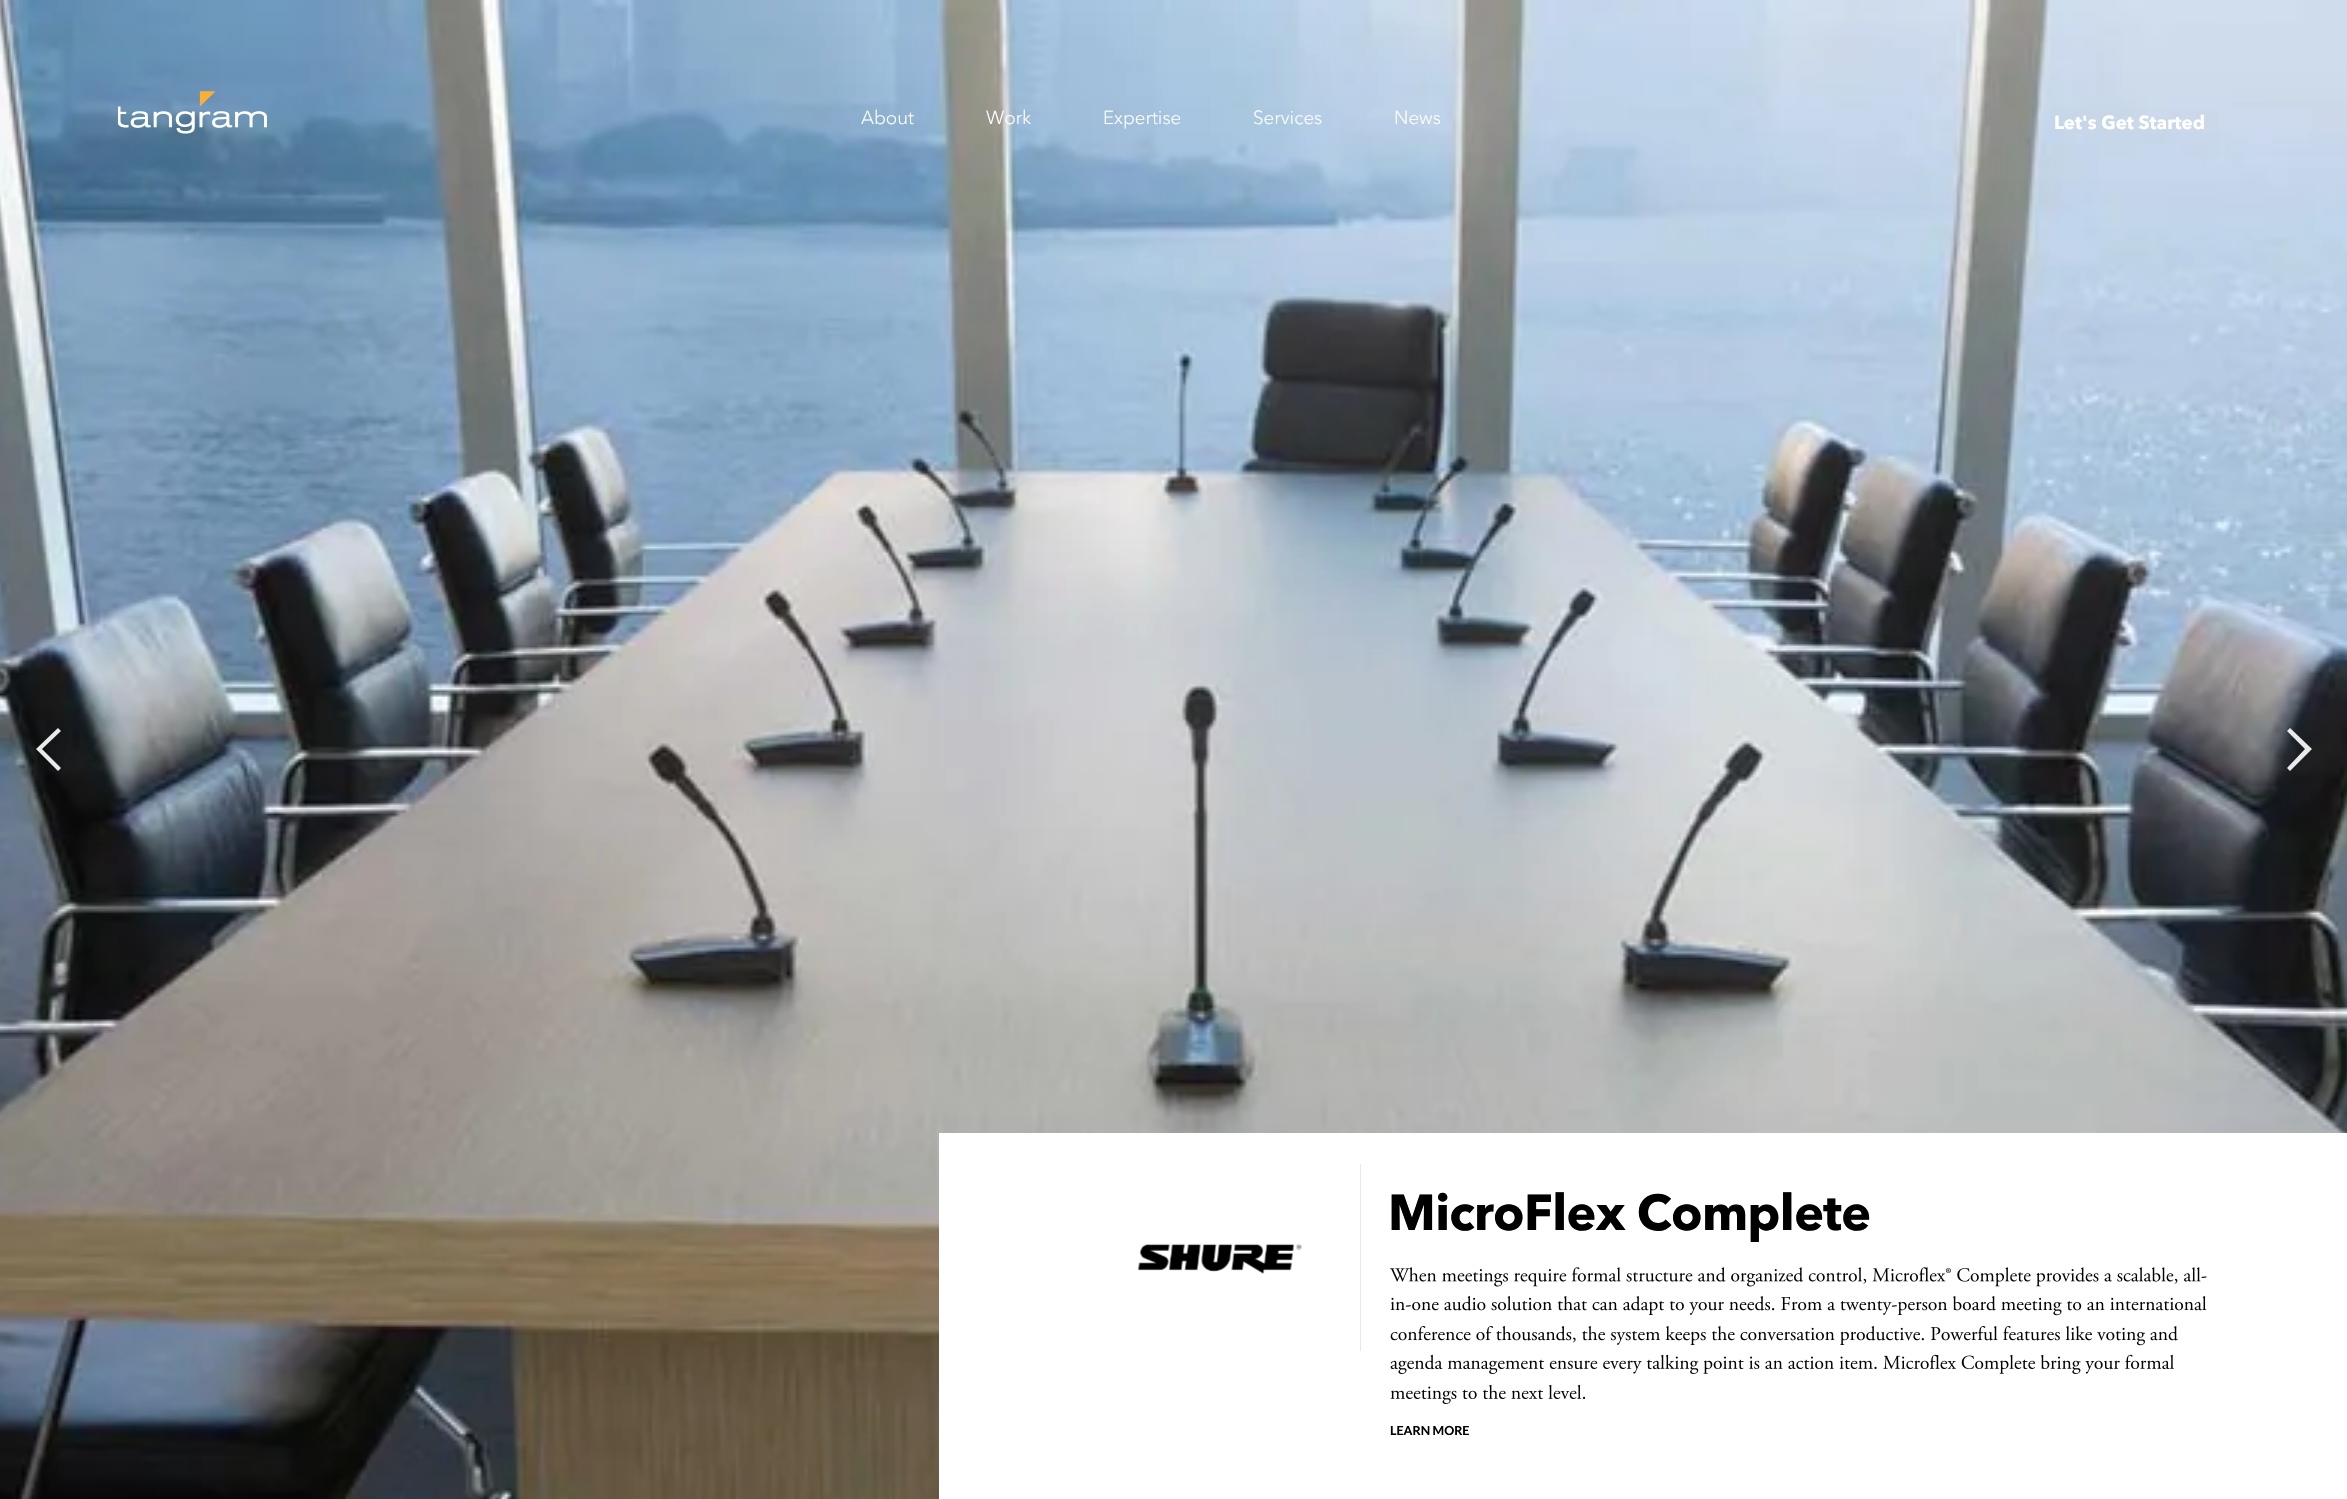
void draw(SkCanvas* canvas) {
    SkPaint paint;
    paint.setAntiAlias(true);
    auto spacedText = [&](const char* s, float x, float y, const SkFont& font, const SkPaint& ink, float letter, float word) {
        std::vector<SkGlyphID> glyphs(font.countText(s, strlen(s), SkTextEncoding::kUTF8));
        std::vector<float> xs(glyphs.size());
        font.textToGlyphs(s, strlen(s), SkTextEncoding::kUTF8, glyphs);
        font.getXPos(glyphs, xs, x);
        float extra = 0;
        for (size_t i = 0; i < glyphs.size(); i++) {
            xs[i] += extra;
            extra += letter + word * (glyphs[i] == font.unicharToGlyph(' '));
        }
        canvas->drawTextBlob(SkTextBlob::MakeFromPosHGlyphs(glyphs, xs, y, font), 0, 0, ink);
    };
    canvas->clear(0xFFFFFFFF);
    canvas->drawImageRect(SkImages::DeferredFromEncodedData(SkData::MakeFromFileName("img2.png")), SkRect::MakeXYWH(0, 0, 2347, 1499), SkSamplingOptions());
    canvas->drawImageRect(SkImages::DeferredFromEncodedData(SkData::MakeFromFileName("img1.png")), SkRect::MakeXYWH(118, 91, 149, 43), SkSamplingOptions());
    SkFont font1(fontMgr->matchFamilyStyle("Avenir Next", SkFontStyle(300, SkFontStyle::kNormal_Width, SkFontStyle::kUpright_Slant)), 18.75f);
    font1.setSubpixel(true);
    paint.setColor(0xFFFFFFFF);
    canvas->drawString("About", 861, 124, font1, paint);
    canvas->drawString("Work", 986, 124, font1, paint);
    canvas->drawString("Expertise", 1103, 124, font1, paint);
    canvas->drawString("Services", 1253, 124, font1, paint);
    canvas->drawString("News", 1394, 124, font1, paint);
    SkFont font2(fontMgr->matchFamilyStyle("Avenir Next", SkFontStyle::Bold()), 18.75f);
    font2.setSubpixel(true);
    canvas->drawString("Let's Get Started", 2054, 129, font2, paint);
    paint.setColor(0xFAEEEEEE);
    canvas->drawPath(SkPathBuilder().moveTo(36, 749).lineTo(58, 728).lineTo(61, 731).lineTo(42, 749).lineTo(61, 768).lineTo(58, 771).close().detach(), paint);
    canvas->drawPath(SkPathBuilder().moveTo(2312, 749).lineTo(2290, 728).lineTo(2287, 731).lineTo(2305, 749).lineTo(2287, 768).lineTo(2290, 771).close().detach(), paint);
    paint.setColor(0xFFFFFFFF);
    canvas->drawRect(SkRect::MakeXYWH(939, 1133, 1408, 366), paint);
    paint.setColor(0xFFE9E9E9);
    canvas->drawRect(SkRect::MakeXYWH(1360, 1164, 1, 187), paint);
    canvas->drawImageRect(SkImages::DeferredFromEncodedData(SkData::MakeFromFileName("img3.png")), SkRect::MakeXYWH(1137, 1243, 165, 31), SkSamplingOptions());
    SkFont font3(fontMgr->matchFamilyStyle("Avenir Next", SkFontStyle::Bold()), 50);
    font3.setSubpixel(true);
    paint.setColor(0xFF000000);
    spacedText("MicroFlex Complete", 1388, 1230, font3, paint, -0.6f, 0);
    canvas->drawImageRect(SkImages::DeferredFromEncodedData(SkData::MakeFromFileName("img4.png")), SkRect::MakeXYWH(1390, 1267, 817, 20), SkSamplingOptions());
    canvas->drawImageRect(SkImages::DeferredFromEncodedData(SkData::MakeFromFileName("img5.png")), SkRect::MakeXYWH(1390, 1296, 817, 20), SkSamplingOptions());
    canvas->drawImageRect(SkImages::DeferredFromEncodedData(SkData::MakeFromFileName("img6.png")), SkRect::MakeXYWH(1390, 1326, 788, 20), SkSamplingOptions());
    canvas->drawImageRect(SkImages::DeferredFromEncodedData(SkData::MakeFromFileName("img7.png")), SkRect::MakeXYWH(1390, 1354, 784, 20), SkSamplingOptions());
    canvas->drawImageRect(SkImages::DeferredFromEncodedData(SkData::MakeFromFileName("img8.png")), SkRect::MakeXYWH(1390, 1384, 196, 20), SkSamplingOptions());
    SkFont font4(fontMgr->matchFamilyStyle("Lato", SkFontStyle::Bold()), 12.5f);
    font4.setSubpixel(true);
    canvas->drawString("LEARN MORE", 1390, 1435, font4, paint);
}
